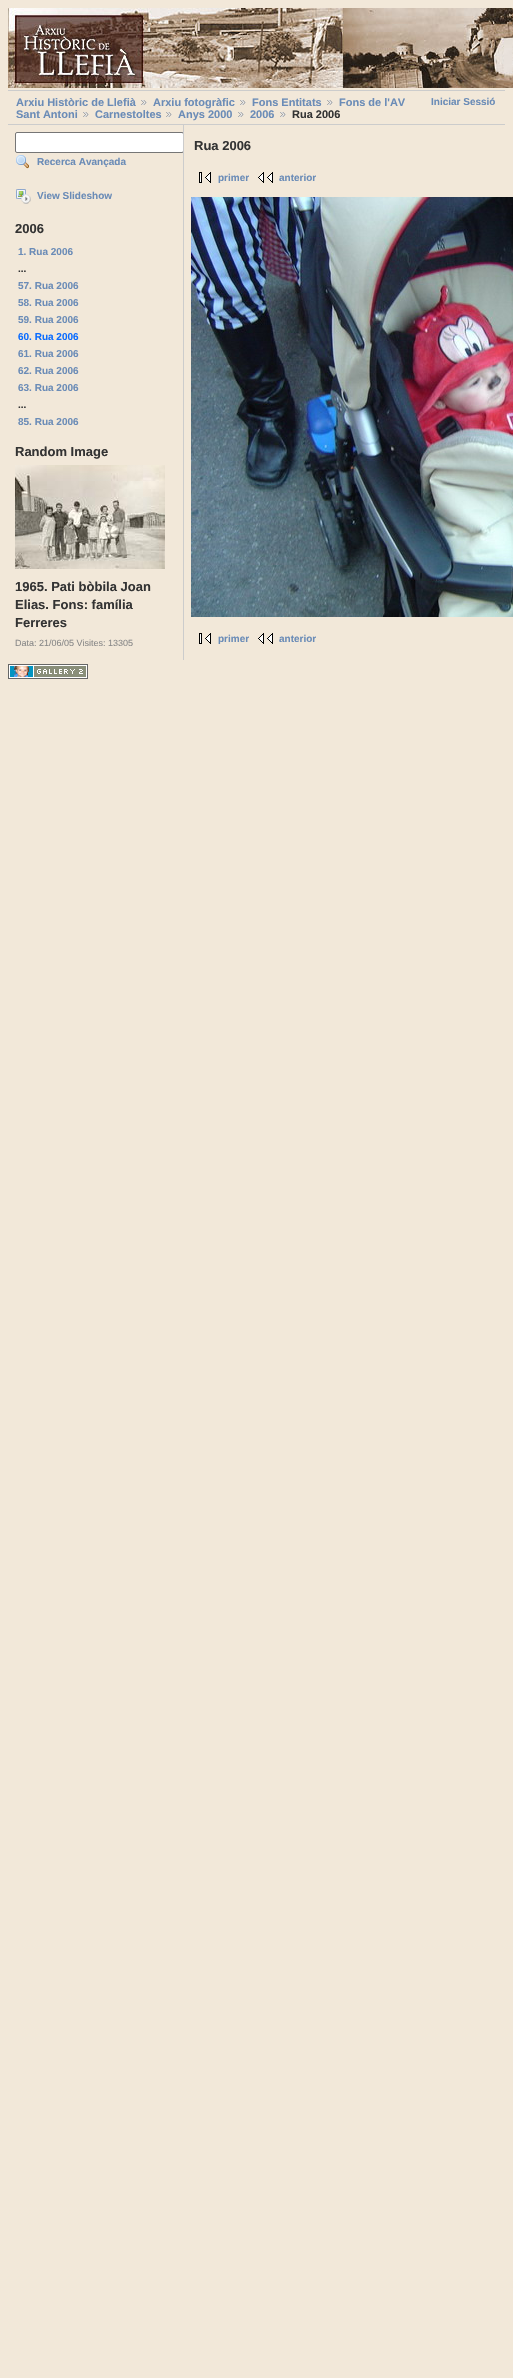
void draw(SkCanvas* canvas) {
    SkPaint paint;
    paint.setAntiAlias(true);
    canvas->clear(0xFFF2E8D9);
    canvas->drawImageRect(SkImages::DeferredFromEncodedData(SkData::MakeFromFileName("img1.png")), SkRect::MakeXYWH(8, 8, 505, 80), SkSamplingOptions());
    paint.setColor(0xFFCCCCCC);
    canvas->drawRect(SkRect::MakeXYWH(8, 90, 497, 1), paint);
    canvas->drawRect(SkRect::MakeXYWH(8, 124, 497, 1), paint);
    SkFont font1(fontMgr->matchFamilyStyle("Liberation Sans", SkFontStyle::Bold()), 11);
    font1.setSubpixel(true);
    paint.setColor(0xFF6B8CB7);
    canvas->drawString("Arxiu Històric de Llefià", 16, 106, font1, paint);
    canvas->drawImageRect(SkImages::DeferredFromEncodedData(SkData::MakeFromFileName("img2.png")), SkRect::MakeXYWH(141, 100, 6, 5), SkSamplingOptions());
    canvas->drawString("Arxiu fotogràfic", 153, 106, font1, paint);
    canvas->drawImageRect(SkImages::DeferredFromEncodedData(SkData::MakeFromFileName("img2.png")), SkRect::MakeXYWH(240, 100, 6, 5), SkSamplingOptions());
    canvas->drawString("Fons Entitats", 252, 106, font1, paint);
    canvas->drawImageRect(SkImages::DeferredFromEncodedData(SkData::MakeFromFileName("img2.png")), SkRect::MakeXYWH(327, 100, 6, 5), SkSamplingOptions());
    canvas->drawString("Fons de l'AV", 339, 106, font1, paint);
    canvas->drawString("Sant Antoni", 16, 118, font1, paint);
    canvas->drawImageRect(SkImages::DeferredFromEncodedData(SkData::MakeFromFileName("img2.png")), SkRect::MakeXYWH(83, 112, 6, 5), SkSamplingOptions());
    canvas->drawString("Carnestoltes", 95, 118, font1, paint);
    canvas->drawImageRect(SkImages::DeferredFromEncodedData(SkData::MakeFromFileName("img2.png")), SkRect::MakeXYWH(166, 112, 6, 5), SkSamplingOptions());
    canvas->drawString("Anys 2000", 178, 118, font1, paint);
    canvas->drawImageRect(SkImages::DeferredFromEncodedData(SkData::MakeFromFileName("img2.png")), SkRect::MakeXYWH(238, 112, 6, 5), SkSamplingOptions());
    canvas->drawString("2006", 250, 118, font1, paint);
    canvas->drawImageRect(SkImages::DeferredFromEncodedData(SkData::MakeFromFileName("img2.png")), SkRect::MakeXYWH(280, 112, 6, 5), SkSamplingOptions());
    paint.setColor(0xFF333333);
    canvas->drawString("Rua 2006", 292, 118, font1, paint);
    SkFont font2(fontMgr->matchFamilyStyle("Liberation Sans", SkFontStyle::Bold()), 10);
    font2.setSubpixel(true);
    paint.setColor(0xFF6B8CB7);
    canvas->drawString("Iniciar Sessió", 431, 105, font2, paint);
    paint.setColor(0xFFCCCCCC);
    canvas->drawRect(SkRect::MakeXYWH(183, 125, 1, 535), paint);
    canvas->save();
    canvas->clipRect(SkRect::MakeXYWH(8, 125, 175, 535));
    paint.setColor(0xFFFFFFFF);
    canvas->drawRoundRect(SkRect::MakeXYWH(15.5f, 132.5f, 168, 20), 1.5f, 1.5f, paint);
    paint.setStyle(SkPaint::kStroke_Style);
    paint.setStrokeWidth(1);
    paint.setColor(0xFF767676);
    canvas->drawRoundRect(SkRect::MakeXYWH(15.5f, 132.5f, 168, 20), 1.5f, 1.5f, paint);
    canvas->restore();
    canvas->drawImageRect(SkImages::DeferredFromEncodedData(SkData::MakeFromFileName("img3.png")), SkRect::MakeXYWH(16, 155, 13, 14), SkSamplingOptions());
    paint.setStyle(SkPaint::kFill_Style);
    paint.setColor(0xFF6B8CB7);
    canvas->drawString("Recerca Avançada", 37, 165, font2, paint);
    canvas->drawImageRect(SkImages::DeferredFromEncodedData(SkData::MakeFromFileName("img4.png")), SkRect::MakeXYWH(16, 189, 15, 15), SkSamplingOptions());
    canvas->drawString("View Slideshow", 37, 199, font2, paint);
    SkFont font3(fontMgr->matchFamilyStyle("Liberation Sans", SkFontStyle::Bold()), 13);
    font3.setSubpixel(true);
    paint.setColor(0xFF333333);
    canvas->drawString("2006", 15, 233, font3, paint);
    paint.setColor(0xFF6B8CB7);
    canvas->drawString("1. Rua 2006", 18, 255, font2, paint);
    paint.setColor(0xFF333333);
    canvas->drawString("...", 18, 272, font2, paint);
    paint.setColor(0xFF6B8CB7);
    canvas->drawString("57. Rua 2006", 18, 289, font2, paint);
    canvas->drawString("58. Rua 2006", 18, 306, font2, paint);
    canvas->drawString("59. Rua 2006", 18, 323, font2, paint);
    paint.setColor(0xFF0B6CFF);
    canvas->drawString("60. Rua 2006", 18, 340, font2, paint);
    paint.setColor(0xFF6B8CB7);
    canvas->drawString("61. Rua 2006", 18, 357, font2, paint);
    canvas->drawString("62. Rua 2006", 18, 374, font2, paint);
    canvas->drawString("63. Rua 2006", 18, 391, font2, paint);
    paint.setColor(0xFF333333);
    canvas->drawString("...", 18, 408, font2, paint);
    paint.setColor(0xFF6B8CB7);
    canvas->drawString("85. Rua 2006", 18, 425, font2, paint);
    paint.setColor(0xFF333333);
    canvas->drawString("Random Image", 15, 456, font3, paint);
    canvas->drawImageRect(SkImages::DeferredFromEncodedData(SkData::MakeFromFileName("img5.png")), SkRect::MakeXYWH(15, 465, 150, 104), SkSamplingOptions());
    canvas->drawString("1965. Pati bòbila Joan", 15, 591, font3, paint);
    canvas->drawString("Elias. Fons: família", 15, 609, font3, paint);
    canvas->drawString("Ferreres", 15, 627, font3, paint);
    SkFont font4(fontMgr->matchFamilyStyle("Liberation Sans", SkFontStyle::Normal()), 9);
    font4.setSubpixel(true);
    paint.setColor(0xFF888888);
    canvas->drawString("Data: 21/06/05 Visites: 13305", 15, 646, font4, paint);
    paint.setColor(0xFF333333);
    canvas->drawString("Rua 2006", 194, 150, font3, paint);
    canvas->drawImageRect(SkImages::DeferredFromEncodedData(SkData::MakeFromFileName("img6.png")), SkRect::MakeXYWH(199, 172, 12, 11), SkSamplingOptions());
    paint.setColor(0xFF6B8CB7);
    canvas->drawString("primer", 218, 181, font2, paint);
    canvas->drawImageRect(SkImages::DeferredFromEncodedData(SkData::MakeFromFileName("img7.png")), SkRect::MakeXYWH(258, 172, 15, 11), SkSamplingOptions());
    canvas->drawString("anterior", 279, 181, font2, paint);
    canvas->drawImageRect(SkImages::DeferredFromEncodedData(SkData::MakeFromFileName("img8.png")), SkRect::MakeXYWH(191, 197, 322, 420), SkSamplingOptions());
    canvas->drawImageRect(SkImages::DeferredFromEncodedData(SkData::MakeFromFileName("img6.png")), SkRect::MakeXYWH(199, 633, 12, 11), SkSamplingOptions());
    canvas->drawString("primer", 218, 642, font2, paint);
    canvas->drawImageRect(SkImages::DeferredFromEncodedData(SkData::MakeFromFileName("img7.png")), SkRect::MakeXYWH(258, 633, 15, 11), SkSamplingOptions());
    canvas->drawString("anterior", 279, 642, font2, paint);
    canvas->drawImageRect(SkImages::DeferredFromEncodedData(SkData::MakeFromFileName("img9.png")), SkRect::MakeXYWH(8, 664, 80, 15), SkSamplingOptions());
}
